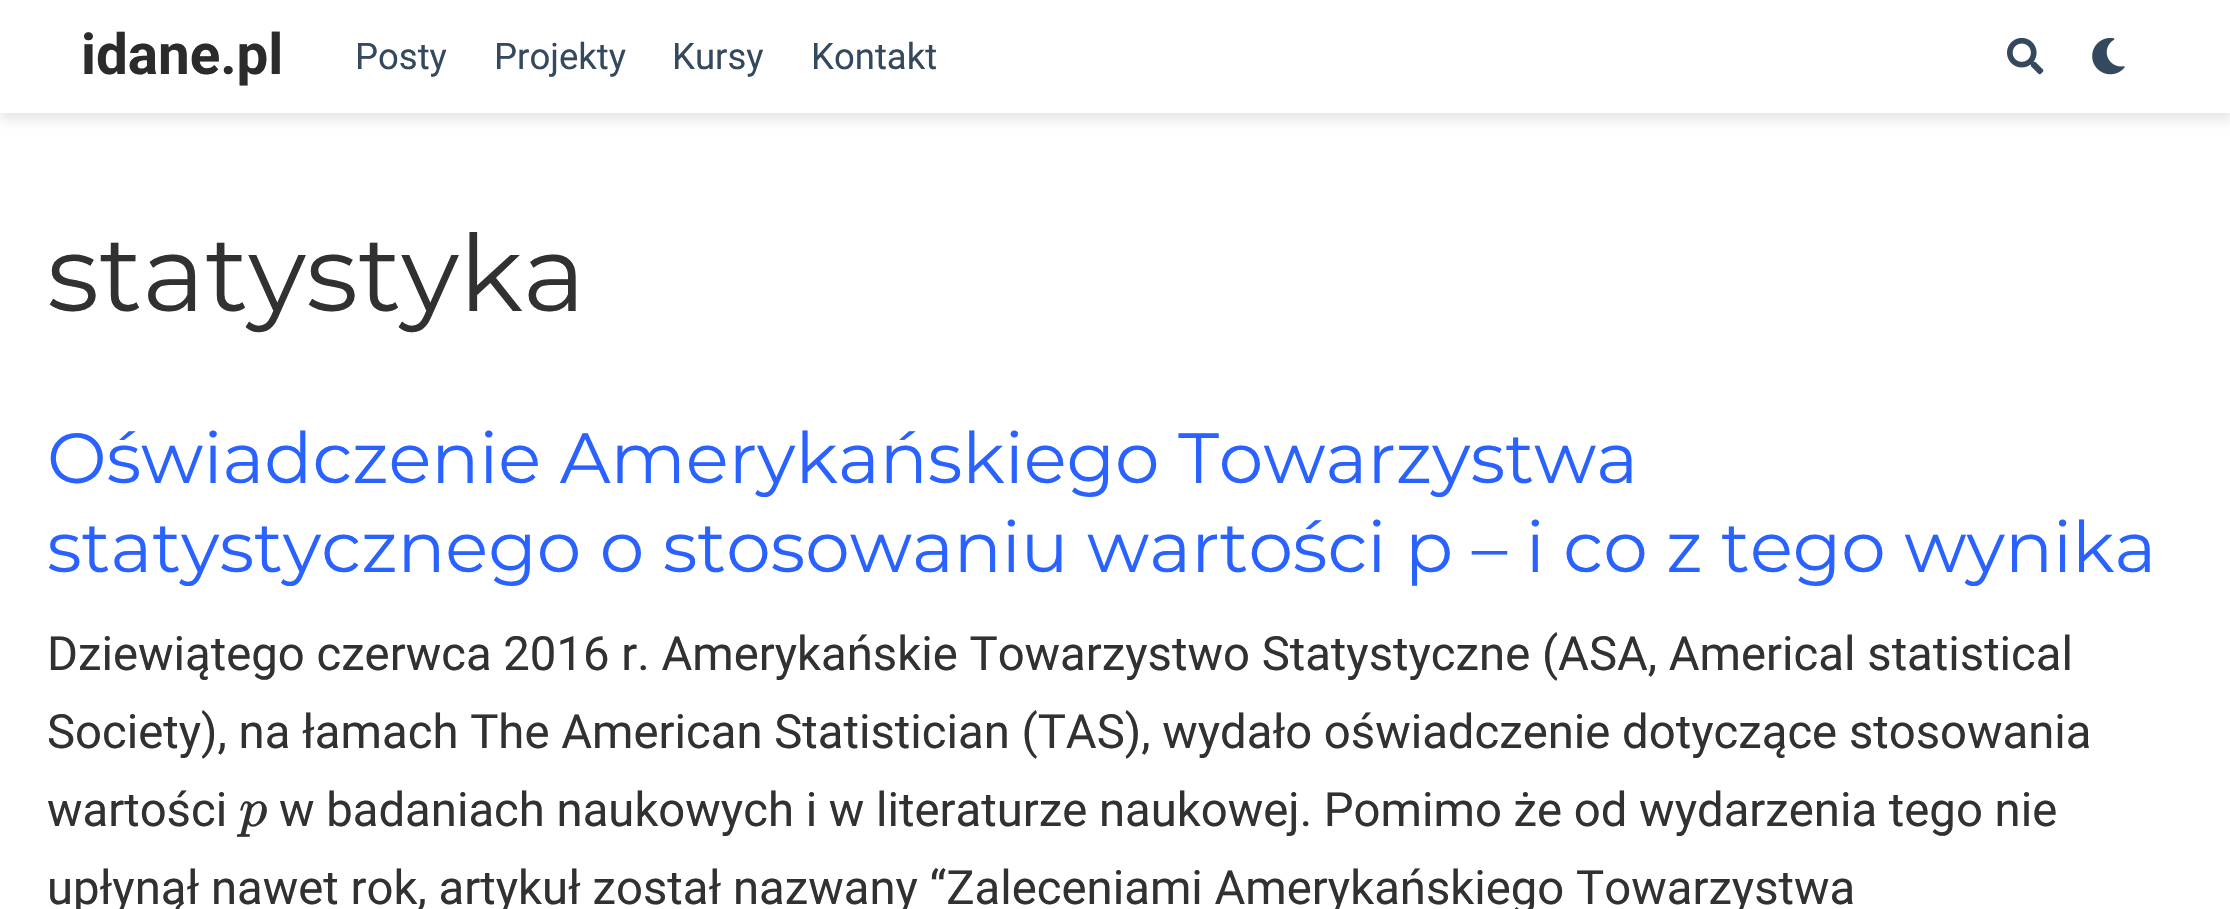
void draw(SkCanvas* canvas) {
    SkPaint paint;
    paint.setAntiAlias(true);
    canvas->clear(0xFFFFFFFF);
    paint.setColor(0x1C000000);
    paint.setMaskFilter(SkMaskFilter::MakeBlur(kNormal_SkBlurStyle, 6));
    canvas->drawRect(SkRect::MakeXYWH(0, 7, 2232, 112), paint);
    paint.setMaskFilter(nullptr);
    paint.setColor(0xFFFFFFFF);
    canvas->drawRect(SkRect::MakeXYWH(0, 0, 2230, 113), paint);
    SkFont font1(fontMgr->matchFamilyStyle("Roboto", SkFontStyle::Bold()), 56.5f);
    font1.setSubpixel(true);
    paint.setColor(0xFF2B2B2B);
    canvas->drawString("idane.pl", 81, 74, font1, paint);
    SkFont font2(fontMgr->matchFamilyStyle("Roboto", SkFontStyle::Normal()), 36.5f);
    font2.setSubpixel(true);
    paint.setColor(0xFF34495E);
    canvas->drawString("Posty", 355, 69, font2, paint);
    canvas->drawString("Projekty", 494, 69, font2, paint);
    canvas->drawString("Kursy", 672, 69, font2, paint);
    canvas->drawString("Kontakt", 811, 69, font2, paint);
    canvas->drawImageRect(SkImages::DeferredFromEncodedData(SkData::MakeFromFileName("img1.png")), SkRect::MakeXYWH(2007, 37, 37, 38), SkSamplingOptions());
    canvas->drawImageRect(SkImages::DeferredFromEncodedData(SkData::MakeFromFileName("img2.png")), SkRect::MakeXYWH(2092, 37, 33, 38), SkSamplingOptions());
    SkFont font3(fontMgr->matchFamilyStyle("Montserrat", SkFontStyle::Normal()), 106.5f);
    font3.setSubpixel(true);
    paint.setColor(0xFF313131);
    canvas->drawString("statystyka", 47, 311, font3, paint);
    SkFont font4(fontMgr->matchFamilyStyle("Montserrat", SkFontStyle::Normal()), 70.9f);
    font4.setSubpixel(true);
    paint.setColor(0xFF2962FF);
    canvas->drawString("Oświadczenie Amerykańskiego Towarzystwa", 47, 483, font4, paint);
    canvas->drawString("statystycznego o stosowaniu wartości p – i co z tego wynika", 47, 572, font4, paint);
    SkFont font5(fontMgr->matchFamilyStyle("Roboto", SkFontStyle::Normal()), 47.25f);
    font5.setSubpixel(true);
    paint.setColor(0xFF313131);
    canvas->drawString("Dziewiątego czerwca 2016 r. Amerykańskie Towarzystwo Statystyczne (ASA, Americal statistical", 47, 670, font5, paint);
    canvas->drawString("Society), na łamach The American Statistician (TAS), wydało oświadczenie dotyczące stosowania", 47, 748, font5, paint);
    canvas->drawString("wartości", 47, 826, font5, paint);
    SkFont font6(fontMgr->matchFamilyStyle("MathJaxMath", SkFontStyle::Italic()), 56);
    font6.setSubpixel(true);
    canvas->drawString("p", 239, 826, font6, paint);
    canvas->drawString("w badaniach naukowych i w literaturze naukowej. Pomimo że od wydarzenia tego nie", 279, 826, font5, paint);
    canvas->drawString("upłynął nawet rok, artykuł został nazwany “Zaleceniami Amerykańskiego Towarzystwa", 47, 904, font5, paint);
}
